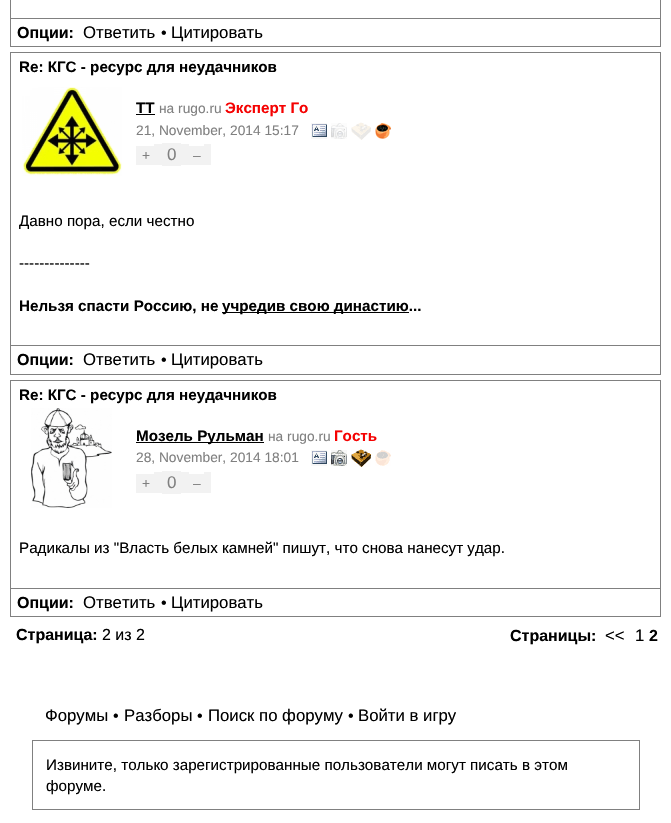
void draw(SkCanvas* canvas) {
    SkPaint paint;
    paint.setAntiAlias(true);
    canvas->clear(0xFFFFFFFF);
    paint.setStyle(SkPaint::kStroke_Style);
    paint.setStrokeWidth(1);
    paint.setColor(0xFF808080);
    canvas->drawRect(SkRect::MakeXYWH(10.5f, -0.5f, 650, 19), paint);
    paint.setStyle(SkPaint::kFill_Style);
    canvas->drawRect(SkRect::MakeXYWH(660, 19, 1, 28), paint);
    canvas->drawRect(SkRect::MakeXYWH(10, 46, 651, 1), paint);
    canvas->drawRect(SkRect::MakeXYWH(10, 19, 1, 28), paint);
    SkFont font1(fontMgr->matchFamilyStyle("Liberation Sans", SkFontStyle::Bold()), 16);
    font1.setSubpixel(true);
    paint.setColor(0xFF000000);
    canvas->drawString("Опции:", 17, 38, font1, paint);
    SkFont font2(fontMgr->matchFamilyStyle("Liberation Sans", SkFontStyle::Normal()), 16.75f);
    font2.setSubpixel(true);
    canvas->drawString("Ответить", 83, 38, font2, paint);
    SkFont font3(fontMgr->matchFamilyStyle("Liberation Sans", SkFontStyle::Normal()), 16);
    font3.setSubpixel(true);
    canvas->drawString("•", 161, 38, font3, paint);
    canvas->drawString("Цитировать", 171, 38, font2, paint);
    paint.setStyle(SkPaint::kStroke_Style);
    paint.setColor(0xFF808080);
    canvas->drawRect(SkRect::MakeXYWH(10.5f, 52.5f, 650, 293), paint);
    SkFont font4(fontMgr->matchFamilyStyle("Liberation Sans", SkFontStyle::Bold()), 15.2f);
    font4.setSubpixel(true);
    paint.setStyle(SkPaint::kFill_Style);
    paint.setColor(0xFF000000);
    canvas->drawString("Re: КГС - ресурс для неудачников", 19, 72, font4, paint);
    canvas->drawImageRect(SkImages::DeferredFromEncodedData(SkData::MakeFromFileName("img1.png")), SkRect::MakeXYWH(22, 87, 100, 89), SkSamplingOptions());
    canvas->drawString("TT", 136, 113, font4, paint);
    canvas->drawRect(SkRect::MakeXYWH(136, 114, 19, 1), paint);
    SkFont font5(fontMgr->matchFamilyStyle("Liberation Sans", SkFontStyle::Normal()), 13.75f);
    font5.setSubpixel(true);
    paint.setColor(0xFF808080);
    canvas->drawString("на rugo.ru", 159, 113, font5, paint);
    paint.setColor(0xFFF50202);
    canvas->drawString("Эксперт Го", 225, 113, font4, paint);
    paint.setColor(0xFF808080);
    canvas->drawString("21, November, 2014 15:17", 136, 135, font5, paint);
    canvas->drawImageRect(SkImages::DeferredFromEncodedData(SkData::MakeFromFileName("img2.png")), SkRect::MakeXYWH(311, 123, 16, 16), SkSamplingOptions());
    canvas->drawImageRect(SkImages::DeferredFromEncodedData(SkData::MakeFromFileName("img3.png")), SkRect::MakeXYWH(331, 123, 16, 16), SkSamplingOptions());
    canvas->drawImageRect(SkImages::DeferredFromEncodedData(SkData::MakeFromFileName("img4.png")), SkRect::MakeXYWH(351, 122, 20, 18), SkSamplingOptions());
    canvas->drawImageRect(SkImages::DeferredFromEncodedData(SkData::MakeFromFileName("img5.png")), SkRect::MakeXYWH(375, 123, 16, 16), SkSamplingOptions());
    paint.setColor(0xFFF2F2F2);
    canvas->drawRect(SkRect::MakeXYWH(136, 146, 18, 19), paint);
    paint.setColor(0xFF808080);
    canvas->drawString("+", 142, 160, font5, paint);
    paint.setColor(0xFFF2F2F2);
    canvas->drawRect(SkRect::MakeXYWH(162, 143, 19, 23), paint);
    SkFont font6(fontMgr->matchFamilyStyle("Liberation Sans", SkFontStyle::Normal()), 17);
    font6.setSubpixel(true);
    paint.setColor(0xFF808080);
    canvas->drawString("0", 167, 160, font6, paint);
    paint.setColor(0xFFF2F2F2);
    canvas->drawRect(SkRect::MakeXYWH(154, 144, 8, 21), paint);
    canvas->drawRect(SkRect::MakeXYWH(181, 144, 8, 21), paint);
    canvas->drawRect(SkRect::MakeXYWH(189, 146, 15, 19), paint);
    paint.setColor(0xFF808080);
    canvas->drawString("–", 193, 160, font5, paint);
    paint.setColor(0xFFF2F2F2);
    canvas->drawRect(SkRect::MakeXYWH(204, 144, 7, 21), paint);
    SkFont font7(fontMgr->matchFamilyStyle("Liberation Sans", SkFontStyle::Normal()), 15.2f);
    font7.setSubpixel(true);
    paint.setColor(0xFF000000);
    canvas->drawString("Давно пора, если честно", 19, 226, font7, paint);
    canvas->drawString("--------------", 19, 268, font7, paint);
    canvas->drawString("Нельзя спасти Россию, не", 19, 311, font4, paint);
    canvas->drawRect(SkRect::MakeXYWH(222, 312, 187, 1), paint);
    canvas->drawString("учредив свою династию...", 222, 311, font4, paint);
    paint.setColor(0xFF808080);
    canvas->drawRect(SkRect::MakeXYWH(660, 346, 1, 29), paint);
    canvas->drawRect(SkRect::MakeXYWH(10, 374, 651, 1), paint);
    canvas->drawRect(SkRect::MakeXYWH(10, 346, 1, 29), paint);
    paint.setColor(0xFF000000);
    canvas->drawString("Опции:", 17, 365, font1, paint);
    canvas->drawString("Ответить", 83, 365, font2, paint);
    canvas->drawString("•", 161, 365, font3, paint);
    canvas->drawString("Цитировать", 171, 365, font2, paint);
    paint.setStyle(SkPaint::kStroke_Style);
    paint.setColor(0xFF808080);
    canvas->drawRect(SkRect::MakeXYWH(10.5f, 380.5f, 650, 208), paint);
    paint.setStyle(SkPaint::kFill_Style);
    paint.setColor(0xFF000000);
    canvas->drawString("Re: КГС - ресурс для неудачников", 19, 400, font4, paint);
    canvas->drawImageRect(SkImages::DeferredFromEncodedData(SkData::MakeFromFileName("img6.png")), SkRect::MakeXYWH(31, 408, 81, 100), SkSamplingOptions());
    canvas->drawRect(SkRect::MakeXYWH(136, 442, 128, 1), paint);
    canvas->drawString("Мозель Рульман", 136, 441, font4, paint);
    paint.setColor(0xFF808080);
    canvas->drawString("на rugo.ru", 268, 441, font5, paint);
    paint.setColor(0xFFF50202);
    canvas->drawString("Гость", 334, 441, font4, paint);
    paint.setColor(0xFF808080);
    canvas->drawString("28, November, 2014 18:01", 136, 462, font5, paint);
    canvas->drawImageRect(SkImages::DeferredFromEncodedData(SkData::MakeFromFileName("img2.png")), SkRect::MakeXYWH(311, 450, 16, 16), SkSamplingOptions());
    canvas->drawImageRect(SkImages::DeferredFromEncodedData(SkData::MakeFromFileName("img7.png")), SkRect::MakeXYWH(331, 450, 16, 16), SkSamplingOptions());
    canvas->drawImageRect(SkImages::DeferredFromEncodedData(SkData::MakeFromFileName("img8.png")), SkRect::MakeXYWH(351, 449, 20, 18), SkSamplingOptions());
    canvas->drawImageRect(SkImages::DeferredFromEncodedData(SkData::MakeFromFileName("img9.png")), SkRect::MakeXYWH(375, 450, 16, 16), SkSamplingOptions());
    paint.setColor(0xFFF2F2F2);
    canvas->drawRect(SkRect::MakeXYWH(136, 474, 18, 19), paint);
    paint.setColor(0xFF808080);
    canvas->drawString("+", 142, 488, font5, paint);
    paint.setColor(0xFFF2F2F2);
    canvas->drawRect(SkRect::MakeXYWH(162, 471, 19, 23), paint);
    paint.setColor(0xFF808080);
    canvas->drawString("0", 167, 488, font6, paint);
    paint.setColor(0xFFF2F2F2);
    canvas->drawRect(SkRect::MakeXYWH(154, 472, 8, 21), paint);
    canvas->drawRect(SkRect::MakeXYWH(181, 472, 8, 21), paint);
    canvas->drawRect(SkRect::MakeXYWH(189, 474, 15, 19), paint);
    paint.setColor(0xFF808080);
    canvas->drawString("–", 193, 488, font5, paint);
    paint.setColor(0xFFF2F2F2);
    canvas->drawRect(SkRect::MakeXYWH(204, 472, 7, 21), paint);
    paint.setColor(0xFF000000);
    canvas->drawString("Радикалы из \"Власть белых камней\" пишут, что снова нанесут удар.", 19, 553, font7, paint);
    paint.setColor(0xFF808080);
    canvas->drawRect(SkRect::MakeXYWH(660, 589, 1, 28), paint);
    canvas->drawRect(SkRect::MakeXYWH(10, 616, 651, 1), paint);
    canvas->drawRect(SkRect::MakeXYWH(10, 589, 1, 28), paint);
    paint.setColor(0xFF000000);
    canvas->drawString("Опции:", 17, 608, font1, paint);
    canvas->drawString("Ответить", 83, 608, font2, paint);
    canvas->drawString("•", 161, 608, font3, paint);
    canvas->drawString("Цитировать", 171, 608, font2, paint);
    canvas->drawString("Страница:", 16, 640, font1, paint);
    canvas->drawString("2 из 2", 102, 640, font3, paint);
    canvas->drawString("Страницы:", 510, 641, font1, paint);
    canvas->drawString("<<", 605, 641, font2, paint);
    canvas->drawString("1", 635, 641, font2, paint);
    canvas->drawString("2", 649, 641, font1, paint);
    canvas->drawString("Форумы", 45, 721, font2, paint);
    canvas->drawString("•", 113, 721, font3, paint);
    canvas->drawString("Разборы", 124, 721, font2, paint);
    canvas->drawString("•", 197, 721, font3, paint);
    canvas->drawString("Поиск по форуму", 208, 721, font2, paint);
    canvas->drawString("•", 348, 721, font3, paint);
    canvas->drawString("Войти в игру", 358, 721, font2, paint);
    paint.setStyle(SkPaint::kStroke_Style);
    paint.setColor(0xFF808080);
    canvas->drawRect(SkRect::MakeXYWH(32.5f, 740.5f, 607, 69), paint);
    paint.setStyle(SkPaint::kFill_Style);
    paint.setColor(0xFF000000);
    canvas->drawString("Извините, только зарегистрированные пользователи могут писать в этом", 46, 770, font7, paint);
    canvas->drawString("форуме.", 46, 791, font7, paint);
}
